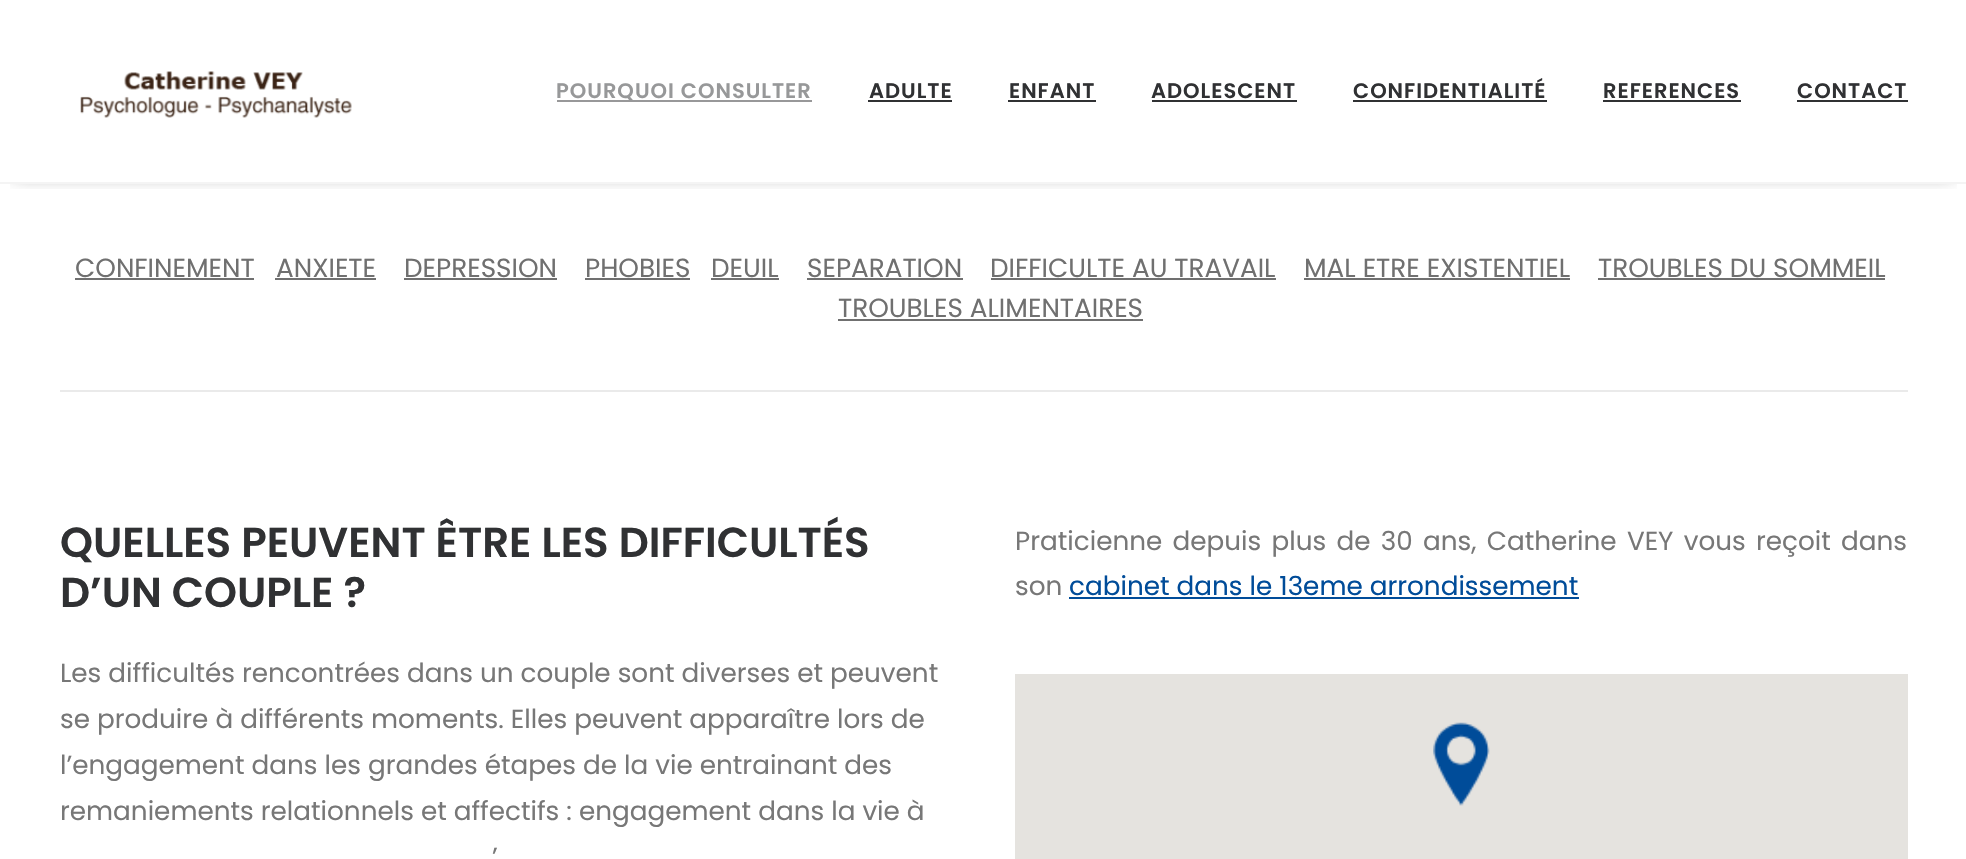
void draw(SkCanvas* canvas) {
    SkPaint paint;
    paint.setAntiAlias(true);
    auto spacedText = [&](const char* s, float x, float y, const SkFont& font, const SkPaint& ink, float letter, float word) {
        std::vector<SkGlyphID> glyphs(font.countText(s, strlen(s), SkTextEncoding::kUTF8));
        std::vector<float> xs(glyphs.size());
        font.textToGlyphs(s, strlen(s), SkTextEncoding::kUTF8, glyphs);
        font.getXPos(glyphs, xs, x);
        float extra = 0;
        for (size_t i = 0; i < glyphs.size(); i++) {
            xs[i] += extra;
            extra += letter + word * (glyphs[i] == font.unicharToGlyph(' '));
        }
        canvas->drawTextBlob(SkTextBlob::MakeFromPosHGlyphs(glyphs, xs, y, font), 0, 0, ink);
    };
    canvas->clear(0xFFFFFFFF);
    canvas->save();
    canvas->clipRect(SkRect::MakeXYWH(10, 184, 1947, 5));
    paint.setColor(0x99000000);
    paint.setMaskFilter(SkMaskFilter::MakeBlur(kNormal_SkBlurStyle, 9));
    canvas->drawRect(SkRect::MakeXYWH(14, 25, 1939, 148), paint);
    paint.setMaskFilter(nullptr);
    canvas->restore();
    paint.setColor(0xFFF4F4F4);
    canvas->drawRect(SkRect::MakeXYWH(0, 182, 1966, 2), paint);
    canvas->drawImageRect(SkImages::DeferredFromEncodedData(SkData::MakeFromFileName("img1.png")), SkRect::MakeXYWH(80, 71, 272, 47), SkSamplingOptions());
    paint.setColor(0xFF989899);
    canvas->drawRect(SkRect::MakeXYWH(557, 100, 255, 2), paint);
    SkFont font1(fontMgr->matchFamilyStyle("Poppins", SkFontStyle(600, SkFontStyle::kNormal_Width, SkFontStyle::kUpright_Slant)), 21);
    font1.setSubpixel(true);
    paint.setColor(0xFF979899);
    spacedText("POURQUOI CONSULTER", 556, 98, font1, paint, 1, 0);
    paint.setColor(0xFF303133);
    spacedText("ADULTE", 869, 98, font1, paint, 1, 0);
    canvas->drawRect(SkRect::MakeXYWH(868, 100, 84, 2), paint);
    spacedText("ENFANT", 1009, 98, font1, paint, 1, 0);
    canvas->drawRect(SkRect::MakeXYWH(1008, 100, 88, 2), paint);
    spacedText("ADOLESCENT", 1151, 98, font1, paint, 1, 0);
    canvas->drawRect(SkRect::MakeXYWH(1152, 100, 145, 2), paint);
    spacedText("CONFIDENTIALITÉ", 1353, 98, font1, paint, 1, 0);
    canvas->drawRect(SkRect::MakeXYWH(1353, 100, 194, 2), paint);
    spacedText("REFERENCES", 1603, 98, font1, paint, 1, 0);
    canvas->drawRect(SkRect::MakeXYWH(1603, 100, 138, 2), paint);
    spacedText("CONTACT", 1797, 98, font1, paint, 1, 0);
    canvas->drawRect(SkRect::MakeXYWH(1797, 100, 111, 2), paint);
    SkFont font2(fontMgr->matchFamilyStyle("Poppins", SkFontStyle::Normal()), 26.25f);
    font2.setSubpixel(true);
    paint.setColor(0xFF707070);
    canvas->drawString("CONFINEMENT", 75, 277, font2, paint);
    canvas->drawRect(SkRect::MakeXYWH(75, 278, 179, 2), paint);
    canvas->drawString("ANXIETE", 276, 277, font2, paint);
    canvas->drawRect(SkRect::MakeXYWH(275, 278, 101, 2), paint);
    canvas->drawString("DEPRESSION", 404, 277, font2, paint);
    canvas->drawRect(SkRect::MakeXYWH(404, 278, 153, 2), paint);
    canvas->drawString("PHOBIES", 585, 277, font2, paint);
    canvas->drawRect(SkRect::MakeXYWH(585, 278, 105, 2), paint);
    canvas->drawString("DEUIL", 711, 277, font2, paint);
    canvas->drawRect(SkRect::MakeXYWH(711, 278, 68, 2), paint);
    canvas->drawString("SEPARATION", 807, 277, font2, paint);
    canvas->drawRect(SkRect::MakeXYWH(807, 278, 156, 2), paint);
    canvas->drawString("DIFFICULTE AU TRAVAIL", 990, 277, font2, paint);
    canvas->drawRect(SkRect::MakeXYWH(991, 278, 285, 2), paint);
    canvas->drawString("MAL ETRE EXISTENTIEL", 1304, 277, font2, paint);
    canvas->drawRect(SkRect::MakeXYWH(1304, 278, 266, 2), paint);
    canvas->drawString("TROUBLES DU SOMMEIL", 1598, 277, font2, paint);
    canvas->drawRect(SkRect::MakeXYWH(1598, 278, 287, 2), paint);
    canvas->drawString("TROUBLES ALIMENTAIRES", 838, 317, font2, paint);
    canvas->drawRect(SkRect::MakeXYWH(838, 319, 305, 2), paint);
    paint.setColor(0xFFEAEAEA);
    canvas->drawRect(SkRect::MakeXYWH(60, 390, 1848, 2), paint);
    SkFont font3(fontMgr->matchFamilyStyle("Poppins", SkFontStyle(600, SkFontStyle::kNormal_Width, SkFontStyle::kUpright_Slant)), 42);
    font3.setSubpixel(true);
    paint.setColor(0xFF303133);
    canvas->drawString("QUELLES PEUVENT ÊTRE LES DIFFICULTÉS", 60, 557, font3, paint);
    canvas->drawString("D’UN COUPLE ?", 60, 607, font3, paint);
    paint.setColor(0xFF777777);
    canvas->drawString("Les difficultés rencontrées dans un couple sont diverses et peuvent", 60, 682, font2, paint);
    canvas->drawString("se produire à différents moments. Elles peuvent apparaître lors de", 60, 728, font2, paint);
    canvas->drawString("l’engagement dans les grandes étapes de la vie entrainant des", 60, 774, font2, paint);
    canvas->drawString("remaniements relationnels et affectifs : engagement dans la vie à", 60, 820, font2, paint);
    canvas->drawString("’", 492, 866, font2, paint);
    spacedText("Praticienne depuis plus de 30 ans, Catherine VEY vous reçoit dans", 1015, 550, font2, paint, 0, 3.25f);
    canvas->drawString("son", 1015, 595, font2, paint);
    paint.setColor(0xFF004C99);
    canvas->drawString("cabinet dans le 13eme arrondissement", 1069, 595, font2, paint);
    canvas->drawRect(SkRect::MakeXYWH(1069, 597, 510, 2), paint);
    paint.setColor(0xFFE5E3DF);
    canvas->drawRect(SkRect::MakeXYWH(1015, 674, 893, 185), paint);
    canvas->drawImageRect(SkImages::DeferredFromEncodedData(SkData::MakeFromFileName("img2.png")), SkRect::MakeXYWH(1433, 722, 57, 84), SkSamplingOptions());
}
